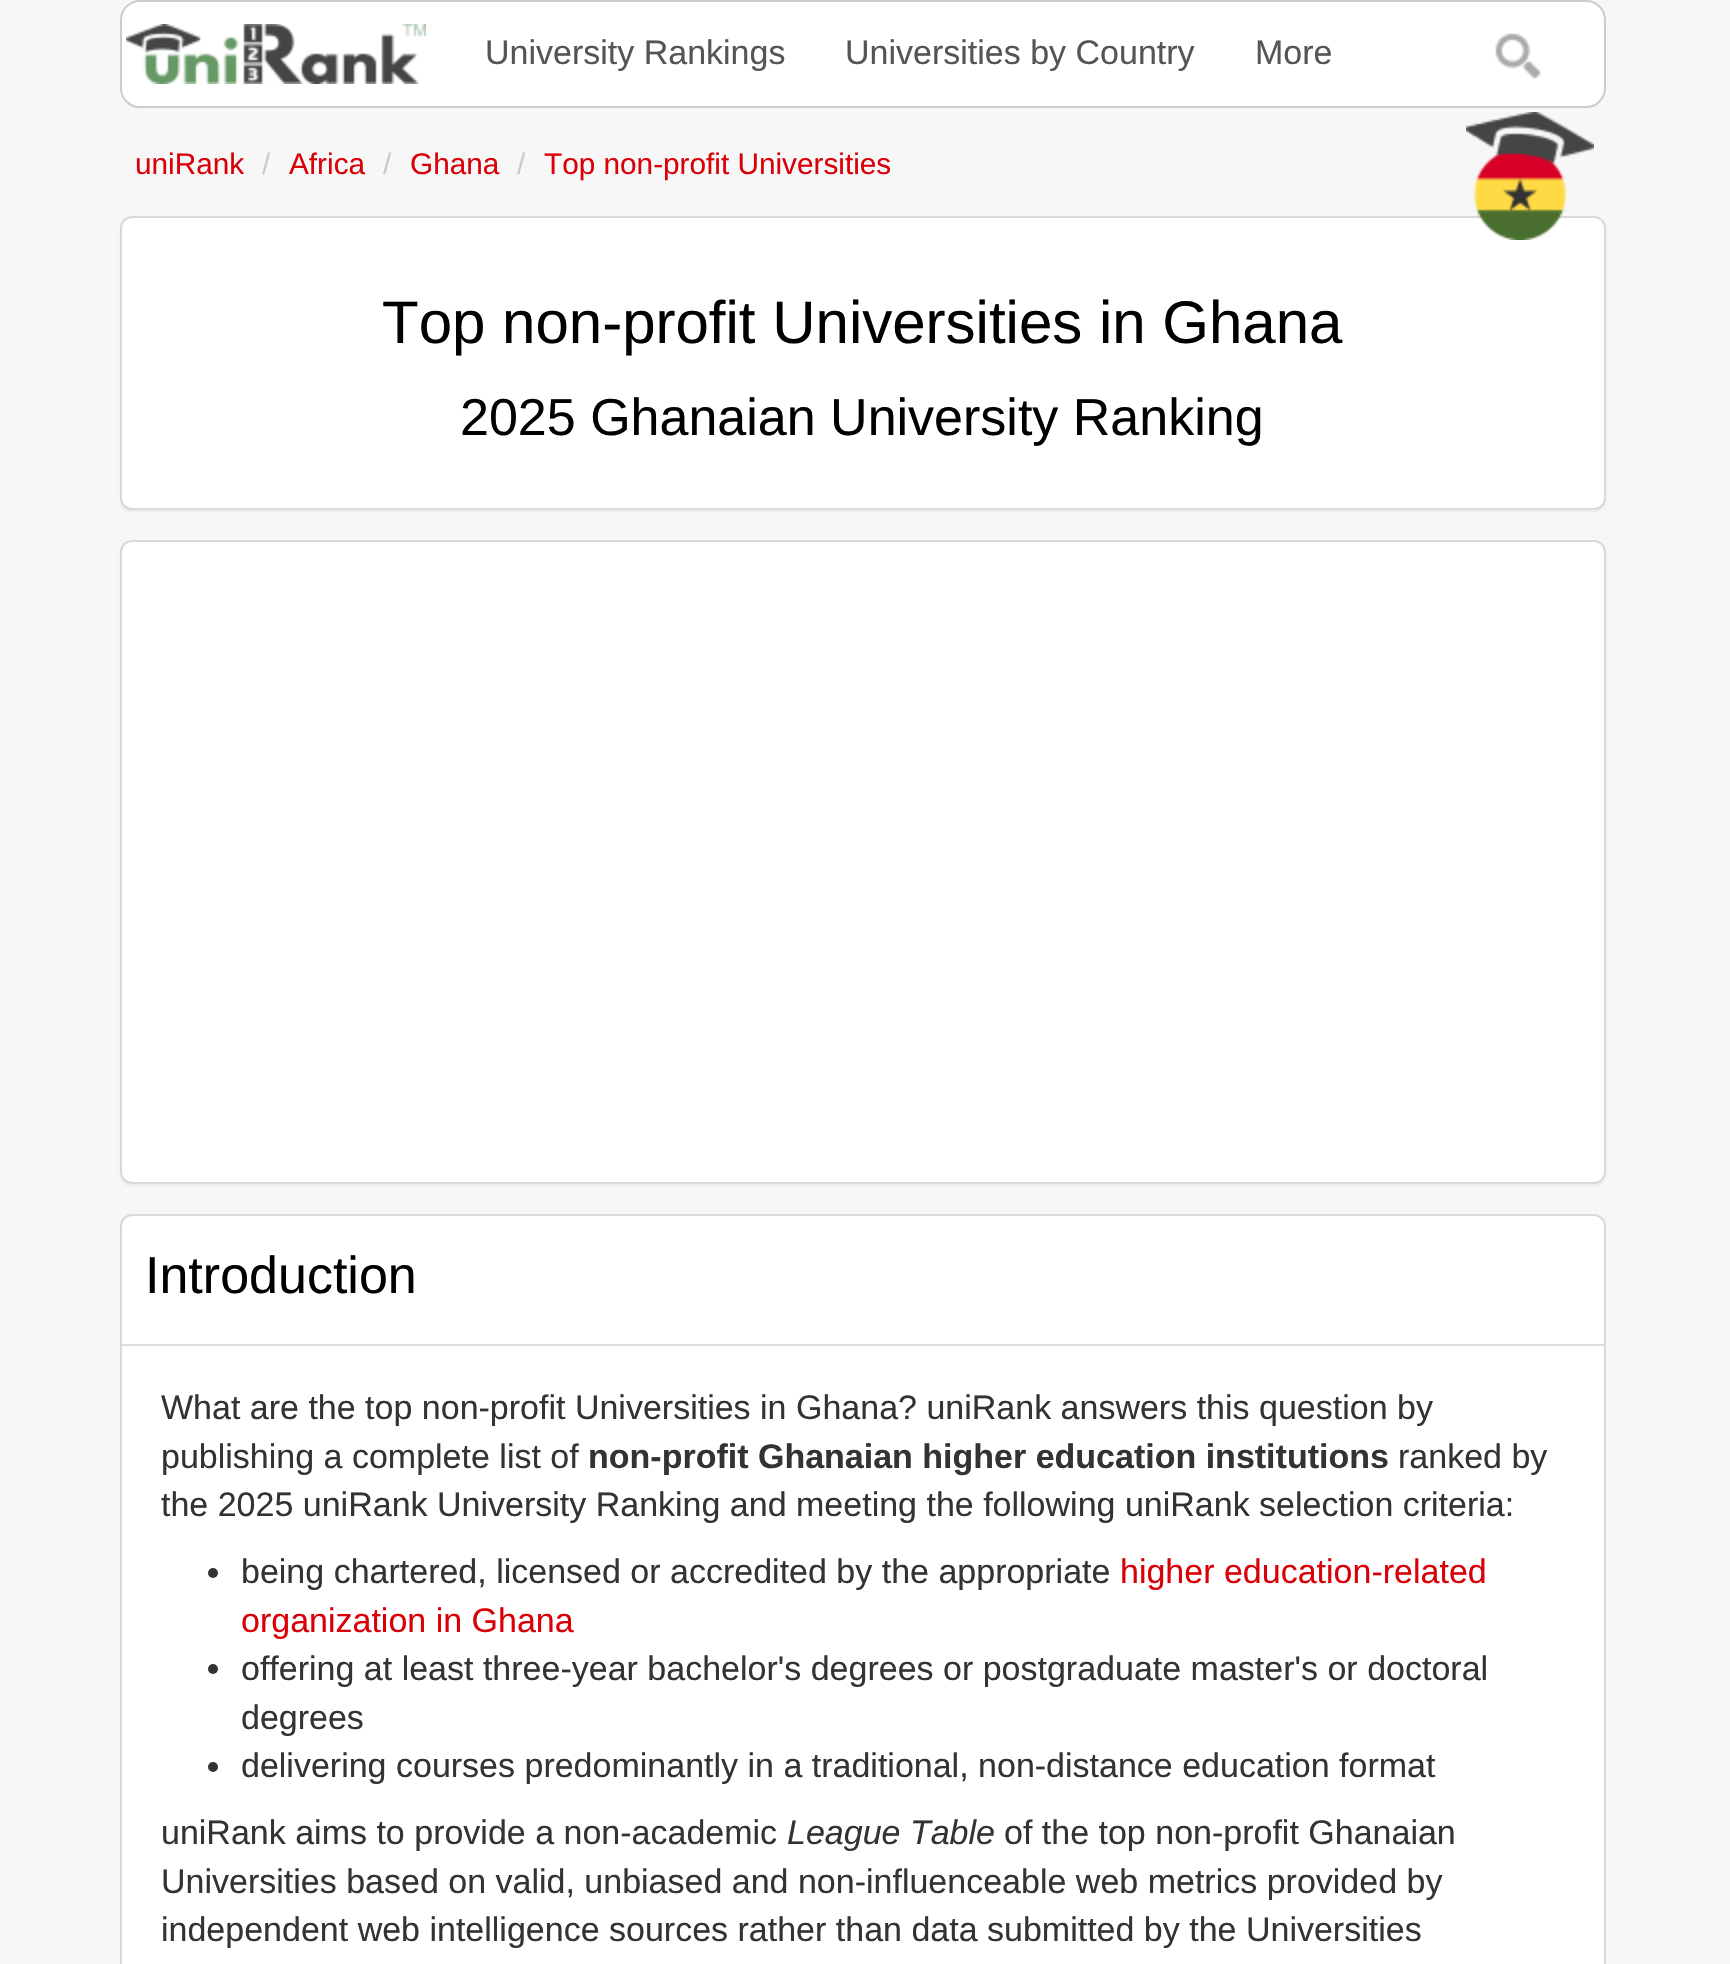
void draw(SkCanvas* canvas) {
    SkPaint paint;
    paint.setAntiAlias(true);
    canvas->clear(0xFFF7F7F7);
    paint.setColor(0xFFFFFFFF);
    canvas->drawRoundRect(SkRect::MakeXYWH(121, 1, 1484, 106), 19, 19, paint);
    paint.setStyle(SkPaint::kStroke_Style);
    paint.setStrokeWidth(2);
    paint.setColor(0xFFCCCCCC);
    canvas->drawRoundRect(SkRect::MakeXYWH(121, 1, 1484, 106), 19, 19, paint);
    canvas->drawImageRect(SkImages::DeferredFromEncodedData(SkData::MakeFromFileName("img1.png")), SkRect::MakeXYWH(126, 24, 300, 60), SkSamplingOptions());
    SkFont font1(fontMgr->matchFamilyStyle("Liberation Sans", SkFontStyle::Normal()), 34);
    font1.setSubpixel(true);
    paint.setStyle(SkPaint::kFill_Style);
    paint.setColor(0xFF555555);
    canvas->drawString("University Rankings", 485, 64, font1, paint);
    canvas->drawString("Universities by Country", 845, 64, font1, paint);
    canvas->drawString("More", 1255, 64, font1, paint);
    canvas->drawImageRect(SkImages::DeferredFromEncodedData(SkData::MakeFromFileName("img2.png")), SkRect::MakeXYWH(1495, 33, 46, 46), SkSamplingOptions());
    SkFont font2(fontMgr->matchFamilyStyle("Liberation Sans", SkFontStyle::Normal()), 29.75f);
    font2.setSubpixel(true);
    paint.setColor(0xFFDA0008);
    canvas->drawString("uniRank", 135, 174, font2, paint);
    paint.setColor(0xFFCCCCCC);
    canvas->drawString("/", 262, 174, font2, paint);
    paint.setColor(0xFFDA0008);
    canvas->drawString("Africa", 289, 174, font2, paint);
    paint.setColor(0xFFCCCCCC);
    canvas->drawString("/", 383, 174, font2, paint);
    paint.setColor(0xFFDA0008);
    canvas->drawString("Ghana", 410, 174, font2, paint);
    paint.setColor(0xFFCCCCCC);
    canvas->drawString("/", 517, 174, font2, paint);
    paint.setColor(0xFFDA0008);
    canvas->drawString("Top non-profit Universities", 544, 174, font2, paint);
    paint.setColor(0x0D000000);
    paint.setMaskFilter(SkMaskFilter::MakeBlur(kNormal_SkBlurStyle, 1));
    canvas->drawRoundRect(SkRect::MakeXYWH(120, 218, 1486, 294), 12, 12, paint);
    paint.setMaskFilter(nullptr);
    paint.setColor(0xFFFFFFFF);
    canvas->drawRoundRect(SkRect::MakeXYWH(120, 216, 1486, 294), 12, 12, paint);
    paint.setStyle(SkPaint::kStroke_Style);
    paint.setColor(0x26000000);
    canvas->drawRoundRect(SkRect::MakeXYWH(121, 217, 1484, 292), 11, 11, paint);
    canvas->drawImageRect(SkImages::DeferredFromEncodedData(SkData::MakeFromFileName("img3.png")), SkRect::MakeXYWH(1466, 112, 128, 128), SkSamplingOptions());
    SkFont font3(fontMgr->matchFamilyStyle("Liberation Sans", SkFontStyle::Normal()), 60);
    font3.setSubpixel(true);
    paint.setStyle(SkPaint::kFill_Style);
    paint.setColor(0xFF000000);
    canvas->drawString("Top non-profit Universities in Ghana", 382, 343, font3, paint);
    SkFont font4(fontMgr->matchFamilyStyle("Liberation Sans", SkFontStyle::Normal()), 52);
    font4.setSubpixel(true);
    canvas->drawString("2025 Ghanaian University Ranking", 460, 435, font4, paint);
    paint.setColor(0x0D000000);
    paint.setMaskFilter(SkMaskFilter::MakeBlur(kNormal_SkBlurStyle, 1));
    canvas->drawRoundRect(SkRect::MakeXYWH(120, 542, 1486, 644), 12, 12, paint);
    paint.setMaskFilter(nullptr);
    paint.setColor(0xFFFFFFFF);
    canvas->drawRoundRect(SkRect::MakeXYWH(120, 540, 1486, 644), 12, 12, paint);
    paint.setStyle(SkPaint::kStroke_Style);
    paint.setColor(0x26000000);
    canvas->drawRoundRect(SkRect::MakeXYWH(121, 541, 1484, 642), 11, 11, paint);
    paint.setStyle(SkPaint::kFill_Style);
    paint.setColor(0xFFFFFFFF);
    canvas->drawRoundRect(SkRect::MakeXYWH(120, 1214, 1486, 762), 12, 12, paint);
    paint.setStyle(SkPaint::kStroke_Style);
    paint.setColor(0x26000000);
    canvas->drawRoundRect(SkRect::MakeXYWH(121, 1215, 1484, 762), 11, 11, paint);
    paint.setStyle(SkPaint::kFill_Style);
    paint.setColor(0xFFDDDDDD);
    canvas->drawRect(SkRect::MakeXYWH(122, 1344, 1482, 2), paint);
    paint.setColor(0xFF000000);
    canvas->drawString("Introduction", 145, 1293, font4, paint);
    paint.setColor(0xFF333333);
    canvas->drawString("What are the top non-profit Universities in Ghana? uniRank answers this question by", 161, 1419, font1, paint);
    canvas->drawString("publishing a complete list of", 161, 1468, font1, paint);
    SkFont font5(fontMgr->matchFamilyStyle("Liberation Sans", SkFontStyle::Bold()), 34);
    font5.setSubpixel(true);
    canvas->drawString("non-profit Ghanaian higher education institutions", 588, 1468, font5, paint);
    canvas->drawString("ranked by", 1398, 1468, font1, paint);
    canvas->drawString("the 2025 uniRank University Ranking and meeting the following uniRank selection criteria:", 161, 1516, font1, paint);
    canvas->drawCircle(213, 1573, 5, paint);
    canvas->drawString("being chartered, licensed or accredited by the appropriate", 241, 1583, font1, paint);
    paint.setColor(0xFFDA0008);
    canvas->drawString("higher education-related", 1120, 1583, font1, paint);
    canvas->drawString("organization in Ghana", 241, 1632, font1, paint);
    paint.setColor(0xFF333333);
    canvas->drawCircle(213, 1669, 5, paint);
    canvas->drawString("offering at least three-year bachelor's degrees or postgraduate master's or doctoral", 241, 1680, font1, paint);
    canvas->drawString("degrees", 241, 1729, font1, paint);
    canvas->drawCircle(213, 1767, 5, paint);
    canvas->drawString("delivering courses predominantly in a traditional, non-distance education format", 241, 1777, font1, paint);
    canvas->drawString("uniRank aims to provide a non-academic", 161, 1844, font1, paint);
    SkFont font6(fontMgr->matchFamilyStyle("Liberation Sans", SkFontStyle::Italic()), 34);
    font6.setSubpixel(true);
    canvas->drawString("League Table", 787, 1844, font6, paint);
    canvas->drawString("of the top non-profit Ghanaian", 1004, 1844, font1, paint);
    canvas->drawString("Universities based on valid, unbiased and non-influenceable web metrics provided by", 161, 1893, font1, paint);
    canvas->drawString("independent web intelligence sources rather than data submitted by the Universities", 161, 1941, font1, paint);
}
